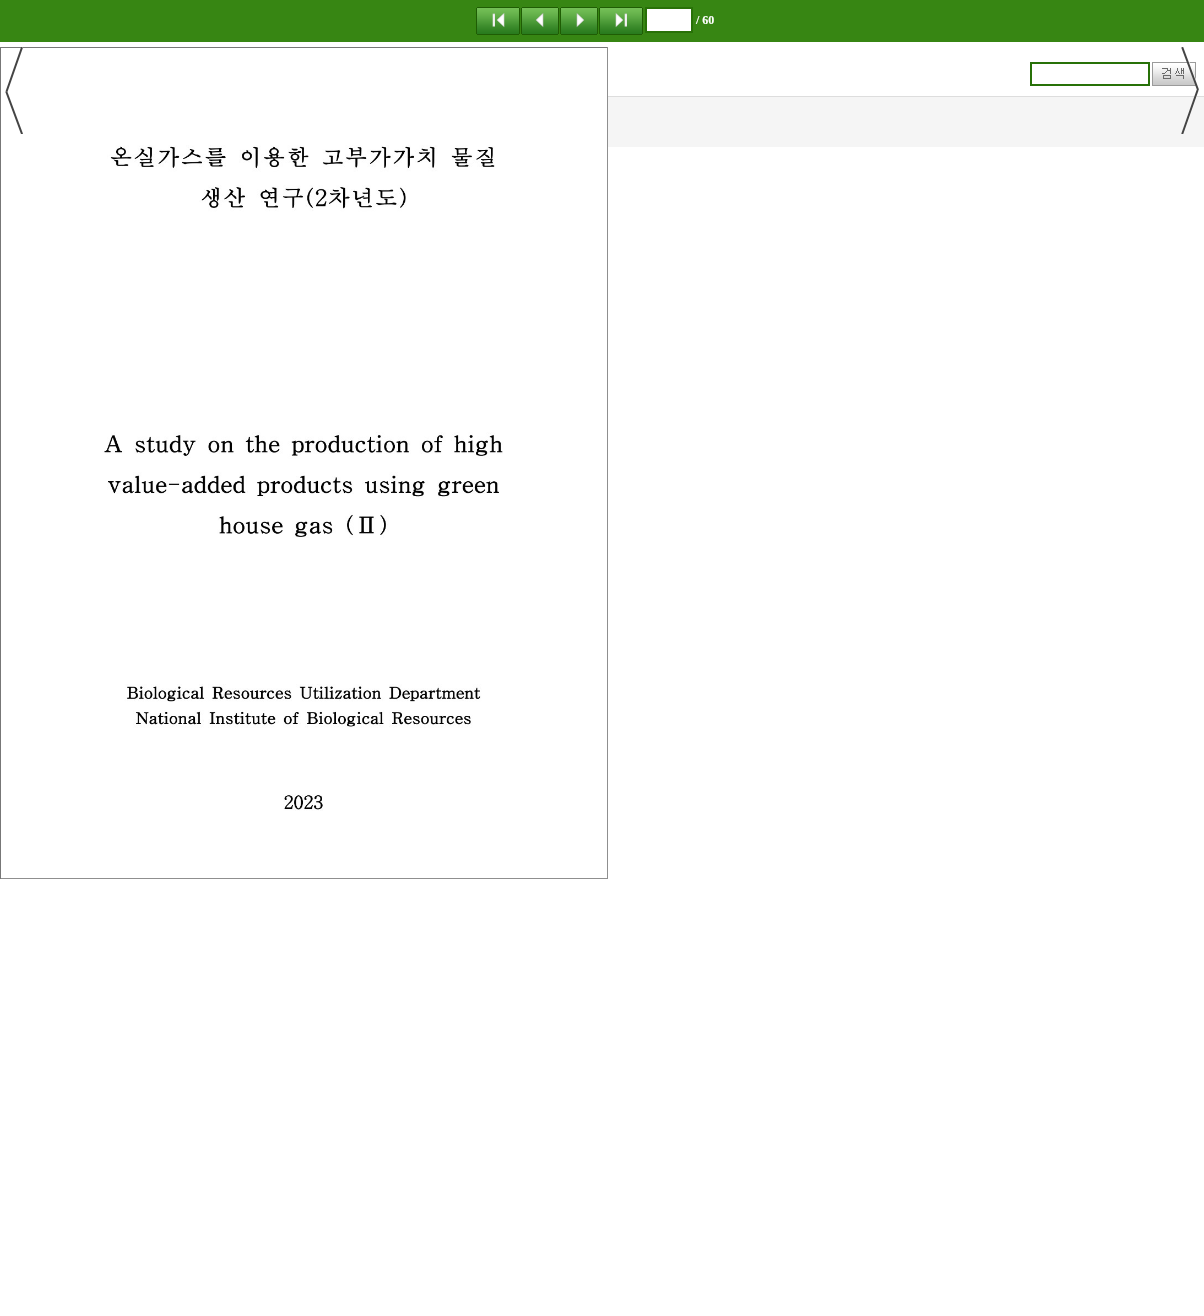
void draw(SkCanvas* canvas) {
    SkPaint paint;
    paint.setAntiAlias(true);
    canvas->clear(0xFFFFFFFF);
    paint.setColor(0xFF378613);
    canvas->drawRect(SkRect::MakeXYWH(0, 0, 1204, 42), paint);
    canvas->drawImageRect(SkImages::DeferredFromEncodedData(SkData::MakeFromFileName("img1.png")), SkRect::MakeXYWH(476, 7, 44, 28), SkSamplingOptions());
    canvas->drawImageRect(SkImages::DeferredFromEncodedData(SkData::MakeFromFileName("img2.png")), SkRect::MakeXYWH(521, 7, 38, 28), SkSamplingOptions());
    canvas->drawImageRect(SkImages::DeferredFromEncodedData(SkData::MakeFromFileName("img3.png")), SkRect::MakeXYWH(560, 7, 38, 28), SkSamplingOptions());
    canvas->drawImageRect(SkImages::DeferredFromEncodedData(SkData::MakeFromFileName("img4.png")), SkRect::MakeXYWH(599, 7, 44, 28), SkSamplingOptions());
    paint.setColor(0xFFFFFFFF);
    canvas->drawRect(SkRect::MakeXYWH(646, 8, 46, 24), paint);
    paint.setStyle(SkPaint::kStroke_Style);
    paint.setStrokeWidth(2);
    paint.setColor(0xFF287108);
    canvas->drawRect(SkRect::MakeXYWH(646, 8, 46, 24), paint);
    SkFont font1(fontMgr->matchFamilyStyle("Liberation Serif", SkFontStyle::Bold()), 12);
    font1.setSubpixel(true);
    paint.setStyle(SkPaint::kFill_Style);
    paint.setColor(0xFFFFFFFF);
    canvas->drawString("/ 60", 696, 24, font1, paint);
    paint.setColor(0xFF777777);
    canvas->drawRect(SkRect::MakeXYWH(0, 47, 608, 1), paint);
    paint.setColor(0xFF8F8F8F);
    canvas->drawRect(SkRect::MakeXYWH(607, 47, 1, 832), paint);
    canvas->drawRect(SkRect::MakeXYWH(0, 878, 608, 1), paint);
    paint.setColor(0xFF777777);
    canvas->drawRect(SkRect::MakeXYWH(0, 47, 1, 832), paint);
    canvas->drawImageRect(SkImages::DeferredFromEncodedData(SkData::MakeFromFileName("img5.png")), SkRect::MakeXYWH(1, 62, 606, 749), SkSamplingOptions());
    canvas->drawImageRect(SkImages::DeferredFromEncodedData(SkData::MakeFromFileName("img6.png")), SkRect::MakeXYWH(5, 47, 18, 87), SkSamplingOptions());
    canvas->drawImageRect(SkImages::DeferredFromEncodedData(SkData::MakeFromFileName("img8.png")), SkRect::MakeXYWH(1152, 62, 44, 24), SkSamplingOptions());
    paint.setColor(0xFFF5F5F5);
    canvas->drawRect(SkRect::MakeXYWH(608, 97, 596, 50), paint);
    paint.setColor(0xFFDDDDDD);
    canvas->drawRect(SkRect::MakeXYWH(608, 96, 596, 1), paint);
    canvas->drawImageRect(SkImages::DeferredFromEncodedData(SkData::MakeFromFileName("img7.png")), SkRect::MakeXYWH(1181, 47, 18, 87), SkSamplingOptions());
    paint.setStyle(SkPaint::kStroke_Style);
    paint.setColor(0xFF287108);
    canvas->drawRect(SkRect::MakeXYWH(1031, 63, 118, 22), paint);
}
